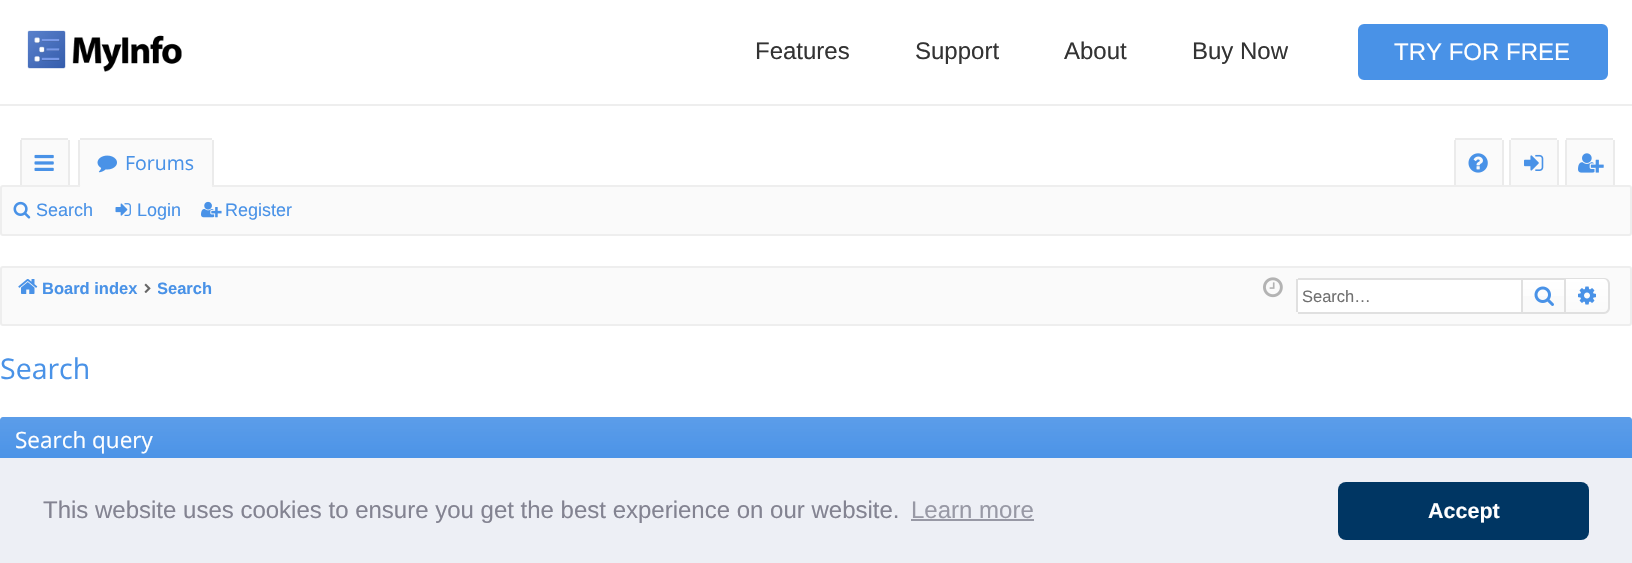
void draw(SkCanvas* canvas) {
    SkPaint paint;
    paint.setAntiAlias(true);
    canvas->clear(0xFFFFFFFF);
    paint.setColor(0xFFEEEEEE);
    canvas->drawRect(SkRect::MakeXYWH(0, 104, 1632, 2), paint);
    canvas->drawImageRect(SkImages::DeferredFromEncodedData(SkData::MakeFromFileName("img1.png")), SkRect::MakeXYWH(27, 30, 155, 42), SkSamplingOptions());
    SkFont font1(fontMgr->matchFamilyStyle("Liberation Sans", SkFontStyle::Normal()), 24);
    font1.setSubpixel(true);
    paint.setColor(0xFF333333);
    canvas->drawString("Features", 755, 59, font1, paint);
    canvas->drawString("Support", 915, 59, font1, paint);
    canvas->drawString("About", 1064, 59, font1, paint);
    canvas->drawString("Buy Now", 1192, 59, font1, paint);
    paint.setColor(0xFF4992E7);
    canvas->drawRoundRect(SkRect::MakeXYWH(1359, 25, 248, 54), 5, 5, paint);
    paint.setStyle(SkPaint::kStroke_Style);
    paint.setStrokeWidth(2);
    canvas->drawRoundRect(SkRect::MakeXYWH(1359, 25, 248, 54), 5, 5, paint);
    paint.setStyle(SkPaint::kFill_Style);
    paint.setColor(0xFFFFFFFF);
    canvas->drawString("TRY FOR FREE", 1394, 60, font1, paint);
    paint.setColor(0xFFFAFAFA);
    canvas->drawPath(SkPathBuilder().moveTo(22.5f, 140).lineTo(66.5f, 140).cubicTo(67.5f, 140, 68, 140.5f, 68, 141.5f).lineTo(68, 186).lineTo(21, 186).lineTo(21, 141.5f).cubicTo(21, 140.5f, 21.5f, 140, 22.5f, 140).close().detach(), paint);
    paint.setColor(0xFFEBEBEB);
    canvas->drawRect(SkRect::MakeXYWH(21, 138, 47, 2), paint);
    canvas->drawRect(SkRect::MakeXYWH(68, 140, 2, 46), paint);
    canvas->drawRect(SkRect::MakeXYWH(20, 140, 2, 46), paint);
    canvas->drawImageRect(SkImages::DeferredFromEncodedData(SkData::MakeFromFileName("img2.png")), SkRect::MakeXYWH(34, 154, 20, 17), SkSamplingOptions());
    paint.setColor(0xFFFAFAFA);
    canvas->drawPath(SkPathBuilder().moveTo(81.5f, 140).lineTo(210.5f, 140).cubicTo(211.5f, 140, 212, 140.5f, 212, 141.5f).lineTo(212, 186).lineTo(80, 186).lineTo(80, 141.5f).cubicTo(80, 140.5f, 80.5f, 140, 81.5f, 140).close().detach(), paint);
    paint.setColor(0xFFEBEBEB);
    canvas->drawRect(SkRect::MakeXYWH(80, 138, 132, 2), paint);
    canvas->drawRect(SkRect::MakeXYWH(212, 140, 2, 46), paint);
    canvas->drawRect(SkRect::MakeXYWH(78, 140, 2, 46), paint);
    canvas->drawImageRect(SkImages::DeferredFromEncodedData(SkData::MakeFromFileName("img3.png")), SkRect::MakeXYWH(97, 155, 20, 18), SkSamplingOptions());
    SkFont font2(fontMgr->matchFamilyStyle("Open Sans", SkFontStyle::Normal()), 19.5f);
    font2.setSubpixel(true);
    paint.setColor(0xFF4992E7);
    canvas->drawString("Forums", 125, 170, font2, paint);
    paint.setColor(0xFFFAFAFA);
    canvas->drawPath(SkPathBuilder().moveTo(1456.5f, 140).lineTo(1500.5f, 140).cubicTo(1501.5f, 140, 1502, 140.5f, 1502, 141.5f).lineTo(1502, 186).lineTo(1455, 186).lineTo(1455, 141.5f).cubicTo(1455, 140.5f, 1455.5f, 140, 1456.5f, 140).close().detach(), paint);
    paint.setColor(0xFFEBEBEB);
    canvas->drawRect(SkRect::MakeXYWH(1502, 140, 2, 46), paint);
    canvas->drawRect(SkRect::MakeXYWH(1454, 140, 2, 46), paint);
    paint.setColor(0xFFFAFAFA);
    canvas->drawPath(SkPathBuilder().moveTo(1512.5f, 140).lineTo(1555.5f, 140).cubicTo(1556.5f, 140, 1557, 140.5f, 1557, 141.5f).lineTo(1557, 186).lineTo(1511, 186).lineTo(1511, 141.5f).cubicTo(1511, 140.5f, 1511.5f, 140, 1512.5f, 140).close().detach(), paint);
    paint.setColor(0xFFEBEBEB);
    canvas->drawRect(SkRect::MakeXYWH(1557, 140, 2, 46), paint);
    canvas->drawRect(SkRect::MakeXYWH(1509, 140, 2, 46), paint);
    paint.setColor(0xFFFAFAFA);
    canvas->drawPath(SkPathBuilder().moveTo(1567.5f, 140).lineTo(1611.5f, 140).cubicTo(1612.5f, 140, 1613, 140.5f, 1613, 141.5f).lineTo(1613, 186).lineTo(1566, 186).lineTo(1566, 141.5f).cubicTo(1566, 140.5f, 1566.5f, 140, 1567.5f, 140).close().detach(), paint);
    paint.setColor(0xFFEBEBEB);
    canvas->drawRect(SkRect::MakeXYWH(1613, 140, 2, 46), paint);
    canvas->drawRect(SkRect::MakeXYWH(1565, 140, 2, 46), paint);
    paint.setColor(0xFFFAFAFA);
    canvas->drawRoundRect(SkRect::MakeXYWH(1, 186, 1630, 49), 2, 2, paint);
    paint.setStyle(SkPaint::kStroke_Style);
    paint.setColor(0xFFEEEEEE);
    canvas->drawRoundRect(SkRect::MakeXYWH(1, 186, 1630, 49), 2, 2, paint);
    paint.setStyle(SkPaint::kFill_Style);
    paint.setColor(0xFFFAFAFA);
    canvas->drawPath(SkPathBuilder().moveTo(83, 183).lineTo(209, 183).cubicTo(210.5f, 183, 212, 184.5f, 212, 186).lineTo(212, 189).lineTo(80, 189).lineTo(80, 186).cubicTo(80, 184.5f, 81.5f, 183, 83, 183).close().detach(), paint);
    paint.setColor(0xFFEBEBEB);
    canvas->drawRect(SkRect::MakeXYWH(1455, 138, 47, 2), paint);
    canvas->drawImageRect(SkImages::DeferredFromEncodedData(SkData::MakeFromFileName("img4.png")), SkRect::MakeXYWH(1468, 153, 20, 20), SkSamplingOptions());
    canvas->drawRect(SkRect::MakeXYWH(1511, 138, 46, 2), paint);
    canvas->drawImageRect(SkImages::DeferredFromEncodedData(SkData::MakeFromFileName("img5.png")), SkRect::MakeXYWH(1524, 154, 20, 17), SkSamplingOptions());
    canvas->drawRect(SkRect::MakeXYWH(1566, 138, 47, 2), paint);
    canvas->drawImageRect(SkImages::DeferredFromEncodedData(SkData::MakeFromFileName("img6.png")), SkRect::MakeXYWH(1578, 153, 26, 20), SkSamplingOptions());
    canvas->drawImageRect(SkImages::DeferredFromEncodedData(SkData::MakeFromFileName("img7.png")), SkRect::MakeXYWH(13, 201, 18, 18), SkSamplingOptions());
    SkFont font3(fontMgr->matchFamilyStyle("Liberation Sans", SkFontStyle::Normal()), 18);
    font3.setSubpixel(true);
    paint.setColor(0xFF4992E7);
    canvas->drawString("Search", 36, 216, font3, paint);
    canvas->drawImageRect(SkImages::DeferredFromEncodedData(SkData::MakeFromFileName("img8.png")), SkRect::MakeXYWH(115, 203, 16, 13), SkSamplingOptions());
    canvas->drawString("Login", 137, 216, font3, paint);
    canvas->drawImageRect(SkImages::DeferredFromEncodedData(SkData::MakeFromFileName("img9.png")), SkRect::MakeXYWH(201, 201, 21, 17), SkSamplingOptions());
    canvas->drawString("Register", 225, 216, font3, paint);
    paint.setColor(0xFFFAFAFA);
    canvas->drawRoundRect(SkRect::MakeXYWH(1, 267, 1630, 58), 2, 2, paint);
    paint.setStyle(SkPaint::kStroke_Style);
    paint.setColor(0xFFEEEEEE);
    canvas->drawRoundRect(SkRect::MakeXYWH(1, 267, 1630, 58), 2, 2, paint);
    canvas->drawImageRect(SkImages::DeferredFromEncodedData(SkData::MakeFromFileName("img10.png")), SkRect::MakeXYWH(18, 279, 20, 15), SkSamplingOptions());
    SkFont font4(fontMgr->matchFamilyStyle("Liberation Sans", SkFontStyle::Bold()), 16.5f);
    font4.setSubpixel(true);
    paint.setStyle(SkPaint::kFill_Style);
    paint.setColor(0xFF4992E7);
    canvas->drawString("Board index", 42, 294, font4, paint);
    canvas->drawImageRect(SkImages::DeferredFromEncodedData(SkData::MakeFromFileName("img11.png")), SkRect::MakeXYWH(144, 283, 7, 10), SkSamplingOptions());
    canvas->save();
    canvas->clipRect(SkRect::MakeXYWH(158, 272, 54, 33));
    canvas->drawString("Search", 157, 294, font4, paint);
    canvas->restore();
    canvas->drawImageRect(SkImages::DeferredFromEncodedData(SkData::MakeFromFileName("img12.png")), SkRect::MakeXYWH(1263, 277, 20, 21), SkSamplingOptions());
    paint.setColor(0xFFFFFFFF);
    canvas->drawPath(SkPathBuilder().moveTo(1299.5f, 279).lineTo(1521, 279).lineTo(1521, 312).lineTo(1299.5f, 312).cubicTo(1298.5f, 312, 1298, 311.5f, 1298, 310.5f).lineTo(1298, 280.5f).cubicTo(1298, 279.5f, 1298.5f, 279, 1299.5f, 279).close().detach(), paint);
    paint.setColor(0xFFE0E0E0);
    canvas->drawRect(SkRect::MakeXYWH(1298, 278, 223, 2), paint);
    canvas->drawRect(SkRect::MakeXYWH(1298, 312, 223, 2), paint);
    canvas->drawRect(SkRect::MakeXYWH(1296, 279, 2, 33), paint);
    SkFont font5(fontMgr->matchFamilyStyle("Liberation Sans", SkFontStyle::Normal()), 16.5f);
    font5.setSubpixel(true);
    paint.setColor(0xFF707070);
    canvas->drawString("Search…", 1302, 302, font5, paint);
    {
        const SkColor colors[] = {0xFFFFFFFF, 0xFFFAFAFA};
        const float stops[] = {0, 1};
        const SkPoint ends[] = {{1544, 279}, {1544, 312}};
        paint.setShader(SkGradientShader::MakeLinear(ends, colors, stops, 2, SkTileMode::kClamp));
        paint.setAlpha(255);
    }
    canvas->drawRect(SkRect::MakeXYWH(1523, 280, 41, 16), paint);
    paint.setStyle(SkPaint::kStroke_Style);
    paint.setShader(nullptr);
    paint.setColor(0xFFE0E0E0);
    canvas->drawRect(SkRect::MakeXYWH(1522, 279, 43, 34), paint);
    canvas->drawImageRect(SkImages::DeferredFromEncodedData(SkData::MakeFromFileName("img13.png")), SkRect::MakeXYWH(1534, 286, 20, 20), SkSamplingOptions());
    paint.setStyle(SkPaint::kFill_Style);
    {
        const SkColor colors[] = {0xFFFFFFFF, 0xFFFAFAFA};
        const float stops[] = {0, 1};
        const SkPoint ends[] = {{1587, 279}, {1587, 312}};
        paint.setShader(SkGradientShader::MakeLinear(ends, colors, stops, 2, SkTileMode::kClamp));
        paint.setAlpha(255);
    }
    canvas->drawPath(SkPathBuilder().moveTo(1566, 279).lineTo(1603, 279).cubicTo(1606, 279, 1608, 281, 1608, 284).lineTo(1608, 307).cubicTo(1608, 310, 1606, 312, 1603, 312).lineTo(1566, 312).close().detach(), paint);
    paint.setShader(nullptr);
    paint.setColor(0xFFE0E0E0);
    canvas->drawPath(SkPathBuilder(SkPathFillType::kEvenOdd).moveTo(1566, 278).lineTo(1604, 278).cubicTo(1607, 278, 1610, 280, 1610, 284).lineTo(1610, 308).cubicTo(1610, 311, 1607, 314, 1604, 314).lineTo(1566, 314).close().moveTo(1566, 279).lineTo(1604, 279).cubicTo(1606, 279, 1608, 281, 1608, 284).lineTo(1608, 308).cubicTo(1608, 310, 1606, 312, 1604, 312).lineTo(1566, 312).close().detach(), paint);
    canvas->drawImageRect(SkImages::DeferredFromEncodedData(SkData::MakeFromFileName("img14.png")), SkRect::MakeXYWH(1578, 286, 18, 19), SkSamplingOptions());
    SkFont font6(fontMgr->matchFamilyStyle("Open Sans", SkFontStyle::Normal()), 28.5f);
    font6.setSubpixel(true);
    paint.setColor(0xFF4992E7);
    canvas->drawString("Search", 0, 379, font6, paint);
    paint.setStyle(SkPaint::kStroke_Style);
    paint.setColor(0xFFEEEEEE);
    canvas->drawPath(SkPathBuilder().moveTo(3, 418).lineTo(1629, 418).cubicTo(1630, 418, 1631, 419, 1631, 420).lineTo(1631, 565).cubicTo(1631, 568, 1629, 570, 1626, 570).lineTo(6, 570).cubicTo(3, 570, 1, 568, 1, 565).lineTo(1, 420).cubicTo(1, 419, 2, 418, 3, 418).close().detach(), paint);
    paint.setStyle(SkPaint::kFill_Style);
    paint.setColor(0xFF4992E7);
    canvas->drawPath(SkPathBuilder().moveTo(3, 417).lineTo(1629, 417).cubicTo(1630.5f, 417, 1632, 418.5f, 1632, 420).lineTo(1632, 464).lineTo(0, 464).lineTo(0, 420).cubicTo(0, 418.5f, 1.5f, 417, 3, 417).close().detach(), paint);
    {
        const SkColor colors[] = {0x1AFFFFFF, 0x00FFFFFF};
        const float stops[] = {0, 1};
        const SkPoint ends[] = {{816, 417}, {816, 464}};
        paint.setShader(SkGradientShader::MakeLinear(ends, colors, stops, 2, SkTileMode::kClamp));
        paint.setAlpha(255);
    }
    canvas->drawPath(SkPathBuilder().moveTo(3, 417).lineTo(1629, 417).cubicTo(1630.5f, 417, 1632, 418.5f, 1632, 420).lineTo(1632, 464).lineTo(0, 464).lineTo(0, 420).cubicTo(0, 418.5f, 1.5f, 417, 3, 417).close().detach(), paint);
    SkFont font7(fontMgr->matchFamilyStyle("Open Sans", SkFontStyle::Normal()), 22.5f);
    font7.setSubpixel(true);
    paint.setShader(nullptr);
    paint.setColor(0xFFFFFFFF);
    canvas->drawString("Search query", 15, 448, font7, paint);
    paint.setColor(0xFFEDEFF5);
    canvas->drawRect(SkRect::MakeXYWH(0, 458, 1632, 105), paint);
    paint.setColor(0xFF838391);
    canvas->drawString("This website uses cookies to ensure you get the best experience on our website.", 43, 518, font1, paint);
    paint.setColor(0xFF9899A5);
    canvas->drawString("Learn more", 911, 518, font1, paint);
    canvas->drawRect(SkRect::MakeXYWH(911, 519, 123, 2), paint);
    paint.setColor(0xFF003663);
    canvas->drawRoundRect(SkRect::MakeXYWH(1338, 482, 251, 58), 8, 8, paint);
    SkFont font8(fontMgr->matchFamilyStyle("Liberation Sans", SkFontStyle::Bold()), 21.5f);
    font8.setSubpixel(true);
    paint.setColor(0xFFFFFFFF);
    canvas->drawString("Accept", 1428, 518, font8, paint);
}
